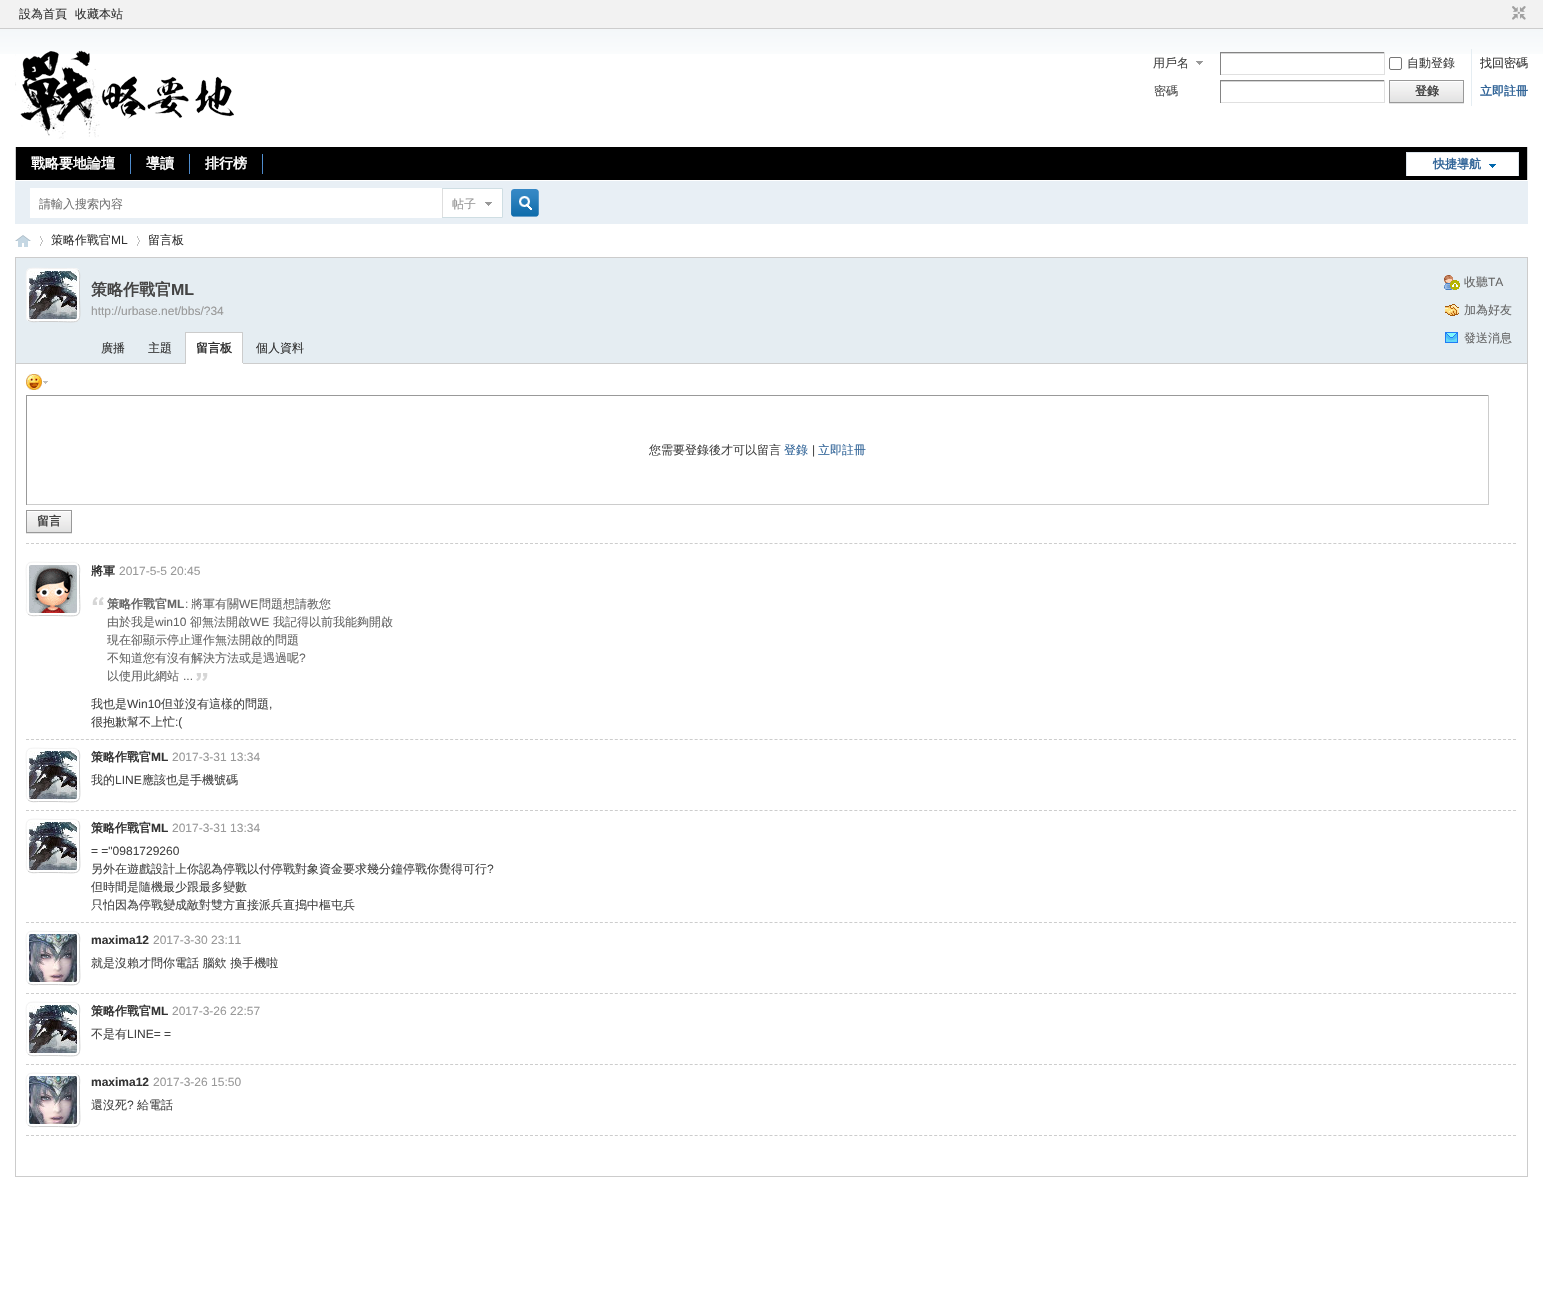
void draw(SkCanvas* canvas) {
    SkPaint paint;
    paint.setAntiAlias(true);
    canvas->clear(0xFFFFFFFF);
    canvas->drawImageRect(SkImages::DeferredFromEncodedData(SkData::MakeFromFileName("img1.png")), SkRect::MakeXYWH(0, 29, 1543, 25), SkSamplingOptions());
    paint.setColor(0xFFF2F2F2);
    canvas->drawRect(SkRect::MakeXYWH(0, 0, 1543, 28), paint);
    paint.setColor(0xFFCDCDCD);
    canvas->drawRect(SkRect::MakeXYWH(0, 28, 1543, 1), paint);
    SkFont font1(fontMgr->matchFamilyStyle("WenQuanYi Zen Hei", SkFontStyle(500, SkFontStyle::kNormal_Width, SkFontStyle::kUpright_Slant)), 12);
    font1.setSubpixel(true);
    paint.setColor(0xFF333333);
    canvas->drawString("設為首頁", 19, 18, font1, paint);
    canvas->drawString("收藏本站", 75, 18, font1, paint);
    canvas->drawImageRect(SkImages::DeferredFromEncodedData(SkData::MakeFromFileName("img2.png")), SkRect::MakeXYWH(1512, 6, 14, 14), SkSamplingOptions());
    canvas->drawImageRect(SkImages::DeferredFromEncodedData(SkData::MakeFromFileName("img3.png")), SkRect::MakeXYWH(15, 50, 219, 89), SkSamplingOptions());
    canvas->drawImageRect(SkImages::DeferredFromEncodedData(SkData::MakeFromFileName("img4.png")), SkRect::MakeXYWH(1196, 61, 7, 4), SkSamplingOptions());
    paint.setColor(0xFF444444);
    canvas->drawString("用戶名", 1153, 67, font1, paint);
    paint.setColor(0xFFD4D4D4);
    canvas->drawRect(SkRect::MakeXYWH(1220, 53, 165, 1), paint);
    paint.setColor(0xFF848484);
    canvas->drawRect(SkRect::MakeXYWH(1220, 52, 165, 1), paint);
    paint.setColor(0xFFE0E0E0);
    canvas->drawRect(SkRect::MakeXYWH(1384, 52, 1, 23), paint);
    canvas->drawRect(SkRect::MakeXYWH(1220, 74, 165, 1), paint);
    paint.setColor(0xFF848484);
    canvas->drawRect(SkRect::MakeXYWH(1220, 52, 1, 23), paint);
    paint.setStyle(SkPaint::kStroke_Style);
    paint.setStrokeWidth(1);
    paint.setColor(0xFF767676);
    canvas->drawRoundRect(SkRect::MakeXYWH(1389.5f, 57.5f, 12, 12), 1.5f, 1.5f, paint);
    paint.setStyle(SkPaint::kFill_Style);
    paint.setColor(0xFF444444);
    canvas->drawString("自動登錄", 1407, 67, font1, paint);
    paint.setColor(0xFF333333);
    canvas->drawString("找回密碼", 1480, 67, font1, paint);
    paint.setColor(0xFF444444);
    canvas->drawString("密碼", 1154, 95, font1, paint);
    paint.setColor(0xFFD4D4D4);
    canvas->drawRect(SkRect::MakeXYWH(1220, 81, 165, 1), paint);
    paint.setColor(0xFF848484);
    canvas->drawRect(SkRect::MakeXYWH(1220, 80, 165, 1), paint);
    paint.setColor(0xFFE0E0E0);
    canvas->drawRect(SkRect::MakeXYWH(1384, 80, 1, 23), paint);
    canvas->drawRect(SkRect::MakeXYWH(1220, 102, 165, 1), paint);
    paint.setColor(0xFF848484);
    canvas->drawRect(SkRect::MakeXYWH(1220, 80, 1, 23), paint);
    paint.setColor(0xFFE5EDF2);
    canvas->drawRect(SkRect::MakeXYWH(1471, 49, 1, 57), paint);
    paint.setColor(0xFFE5E5E5);
    canvas->drawRect(SkRect::MakeXYWH(1389, 103, 75, 1), paint);
    canvas->drawImageRect(SkImages::DeferredFromEncodedData(SkData::MakeFromFileName("img5.png")), SkRect::MakeXYWH(1390, 81, 73, 21), SkSamplingOptions());
    paint.setStyle(SkPaint::kStroke_Style);
    paint.setColor(0xFF999999);
    canvas->drawRect(SkRect::MakeXYWH(1389.5f, 80.5f, 74, 22), paint);
    SkFont font2(fontMgr->matchFamilyStyle("WenQuanYi Zen Hei", SkFontStyle::Bold()), 12);
    font2.setSubpixel(true);
    paint.setStyle(SkPaint::kFill_Style);
    paint.setColor(0xFF444444);
    canvas->drawString("登錄", 1415, 95, font2, paint);
    paint.setColor(0xFF336699);
    canvas->drawString("立即註冊", 1480, 95, font2, paint);
    paint.setColor(0xFF000000);
    canvas->drawRect(SkRect::MakeXYWH(16, 147, 1511, 33), paint);
    paint.setColor(0xFFCDCDCD);
    canvas->drawRect(SkRect::MakeXYWH(1527, 147, 1, 33), paint);
    canvas->drawRect(SkRect::MakeXYWH(15, 147, 1, 33), paint);
    canvas->drawImageRect(SkImages::DeferredFromEncodedData(SkData::MakeFromFileName("img6.png")), SkRect::MakeXYWH(130, 154, 1, 20), SkSamplingOptions());
    SkFont font3(fontMgr->matchFamilyStyle("WenQuanYi Zen Hei", SkFontStyle::Bold()), 14);
    font3.setSubpixel(true);
    paint.setColor(0xFFFFFFFF);
    canvas->drawString("戰略要地論壇", 31, 168, font3, paint);
    canvas->drawImageRect(SkImages::DeferredFromEncodedData(SkData::MakeFromFileName("img6.png")), SkRect::MakeXYWH(189, 154, 1, 20), SkSamplingOptions());
    canvas->drawString("導讀", 146, 168, font3, paint);
    canvas->drawImageRect(SkImages::DeferredFromEncodedData(SkData::MakeFromFileName("img6.png")), SkRect::MakeXYWH(262, 154, 1, 20), SkSamplingOptions());
    canvas->drawString("排行榜", 205, 168, font3, paint);
    canvas->drawImageRect(SkImages::DeferredFromEncodedData(SkData::MakeFromFileName("img7.png")), SkRect::MakeXYWH(1406, 152, 113, 24), SkSamplingOptions());
    paint.setColor(0xFF336699);
    canvas->drawString("快捷導航", 1433, 168, font2, paint);
    paint.setColor(0xFFE8EFF5);
    canvas->drawRect(SkRect::MakeXYWH(15, 181, 1513, 43), paint);
    paint.setColor(0xFFFFFFFF);
    canvas->drawRect(SkRect::MakeXYWH(30, 188, 412, 30), paint);
    canvas->drawImageRect(SkImages::DeferredFromEncodedData(SkData::MakeFromFileName("img8.png")), SkRect::MakeXYWH(511, 189, 28, 28), SkSamplingOptions());
    paint.setColor(0xFF757575);
    canvas->drawString("請輸入搜索內容", 39, 208, font1, paint);
    canvas->drawImageRect(SkImages::DeferredFromEncodedData(SkData::MakeFromFileName("img9.png")), SkRect::MakeXYWH(442, 188, 61, 30), SkSamplingOptions());
    paint.setColor(0xFF999999);
    canvas->drawString("帖子", 452, 208, font1, paint);
    canvas->drawImageRect(SkImages::DeferredFromEncodedData(SkData::MakeFromFileName("img10.png")), SkRect::MakeXYWH(15, 235, 16, 12), SkSamplingOptions());
    canvas->drawImageRect(SkImages::DeferredFromEncodedData(SkData::MakeFromFileName("img11.png")), SkRect::MakeXYWH(40, 236, 3, 10), SkSamplingOptions());
    paint.setColor(0xFF333333);
    canvas->drawString("策略作戰官", 51, 244, font1, paint);
    SkFont font4(fontMgr->matchFamilyStyle("Liberation Sans", SkFontStyle::Normal()), 12);
    font4.setSubpixel(true);
    canvas->drawString("ML", 111, 244, font4, paint);
    canvas->drawImageRect(SkImages::DeferredFromEncodedData(SkData::MakeFromFileName("img11.png")), SkRect::MakeXYWH(137, 236, 3, 10), SkSamplingOptions());
    canvas->drawString("留言板", 148, 244, font1, paint);
    paint.setColor(0xFFE5EDF2);
    canvas->drawRect(SkRect::MakeXYWH(16, 258, 1511, 105), paint);
    paint.setColor(0xFFCCCCCC);
    canvas->drawRect(SkRect::MakeXYWH(15, 257, 1513, 1), paint);
    canvas->drawRect(SkRect::MakeXYWH(1527, 257, 1, 920), paint);
    canvas->drawRect(SkRect::MakeXYWH(15, 257, 1, 107), paint);
    paint.setColor(0xFFFFFFFF);
    canvas->drawRoundRect(SkRect::MakeXYWH(26, 268, 54, 54), 5, 5, paint);
    paint.setStyle(SkPaint::kStroke_Style);
    paint.setColor(0xFFCDCDCD);
    canvas->drawPath(SkPathBuilder().moveTo(78, 270).cubicTo(80.5f, 272.5f, 79.5f, 278, 79.5f, 280.5f).lineTo(79.5f, 295).cubicTo(79.5f, 327, 85, 321.5f, 53, 321.5f).lineTo(38.5f, 321.5f).cubicTo(36, 321.5f, 30.5f, 322.5f, 28, 320).detach(), paint);
    paint.setColor(0xFFF2F2F2);
    canvas->drawPath(SkPathBuilder().moveTo(28, 320).cubicTo(25.5f, 317.5f, 26.5f, 312, 26.5f, 309.5f).lineTo(26.5f, 295).cubicTo(26.5f, 263, 21, 268.5f, 53, 268.5f).lineTo(67.5f, 268.5f).cubicTo(70, 268.5f, 75.5f, 267.5f, 78, 270).detach(), paint);
    canvas->drawImageRect(SkImages::DeferredFromEncodedData(SkData::MakeFromFileName("img12.png")), SkRect::MakeXYWH(29, 271, 48, 48), SkSamplingOptions());
    SkFont font5(fontMgr->matchFamilyStyle("WenQuanYi Zen Hei", SkFontStyle::Bold()), 16);
    font5.setSubpixel(true);
    paint.setStyle(SkPaint::kFill_Style);
    paint.setColor(0xFF444444);
    canvas->drawString("策略作戰官", 91, 295, font5, paint);
    SkFont font6(fontMgr->matchFamilyStyle("Liberation Sans", SkFontStyle::Bold()), 16);
    font6.setSubpixel(true);
    canvas->drawString("ML", 171, 295, font6, paint);
    paint.setColor(0xFF999999);
    canvas->drawString("http://urbase.net/bbs/?34", 91, 315, font4, paint);
    canvas->drawImageRect(SkImages::DeferredFromEncodedData(SkData::MakeFromFileName("img13.png")), SkRect::MakeXYWH(1444, 275, 16, 15), SkSamplingOptions());
    paint.setColor(0xFF666666);
    canvas->drawString("收聽", 1464, 286, font1, paint);
    canvas->drawString("TA", 1488, 286, font4, paint);
    canvas->drawImageRect(SkImages::DeferredFromEncodedData(SkData::MakeFromFileName("img14.png")), SkRect::MakeXYWH(1445, 304, 14, 12), SkSamplingOptions());
    canvas->drawString("加為好友", 1464, 314, font1, paint);
    canvas->drawImageRect(SkImages::DeferredFromEncodedData(SkData::MakeFromFileName("img15.png")), SkRect::MakeXYWH(1445, 332, 13, 11), SkSamplingOptions());
    canvas->drawString("發送消息", 1464, 342, font1, paint);
    paint.setColor(0xFFCDCDCD);
    canvas->drawRect(SkRect::MakeXYWH(16, 363, 1511, 1), paint);
    paint.setColor(0xFF333333);
    canvas->drawString("廣播", 101, 352, font1, paint);
    canvas->drawString("主題", 148, 352, font1, paint);
    paint.setColor(0xFFFFFFFF);
    canvas->drawRect(SkRect::MakeXYWH(186, 333, 56, 30), paint);
    paint.setColor(0xFFCCCCCC);
    canvas->drawRect(SkRect::MakeXYWH(185, 332, 58, 1), paint);
    canvas->drawRect(SkRect::MakeXYWH(242, 332, 1, 32), paint);
    paint.setColor(0xFFFFFFFF);
    canvas->drawRect(SkRect::MakeXYWH(185, 363, 58, 1), paint);
    paint.setColor(0xFFCCCCCC);
    canvas->drawRect(SkRect::MakeXYWH(185, 332, 1, 32), paint);
    paint.setColor(0xFF333333);
    canvas->drawString("留言板", 196, 352, font2, paint);
    canvas->drawString("個人資料", 256, 352, font1, paint);
    paint.setColor(0xFFCCCCCC);
    canvas->drawRect(SkRect::MakeXYWH(15, 1176, 1513, 1), paint);
    canvas->drawRect(SkRect::MakeXYWH(15, 364, 1, 813), paint);
    canvas->drawImageRect(SkImages::DeferredFromEncodedData(SkData::MakeFromFileName("img16.png")), SkRect::MakeXYWH(26, 374, 22, 16), SkSamplingOptions());
    paint.setColor(0xFF999999);
    canvas->drawRect(SkRect::MakeXYWH(26, 395, 1463, 1), paint);
    paint.setColor(0xFFCCCCCC);
    canvas->drawRect(SkRect::MakeXYWH(1488, 395, 1, 110), paint);
    canvas->drawRect(SkRect::MakeXYWH(26, 504, 1463, 1), paint);
    paint.setColor(0xFF999999);
    canvas->drawRect(SkRect::MakeXYWH(26, 395, 1, 110), paint);
    paint.setColor(0xFF444444);
    canvas->drawString("您需要登錄後才可以留言", 649, 454, font1, paint);
    paint.setColor(0xFF336699);
    canvas->drawString("登錄", 784, 454, font1, paint);
    paint.setColor(0xFF444444);
    canvas->drawString("|", 812, 454, font4, paint);
    paint.setColor(0xFF336699);
    canvas->drawString("立即註冊", 818, 454, font1, paint);
    paint.setColor(0xFFE5E5E5);
    canvas->drawRect(SkRect::MakeXYWH(26, 533, 46, 1), paint);
    canvas->drawImageRect(SkImages::DeferredFromEncodedData(SkData::MakeFromFileName("img17.png")), SkRect::MakeXYWH(27, 511, 44, 21), SkSamplingOptions());
    paint.setStyle(SkPaint::kStroke_Style);
    paint.setColor(0xFF999999);
    canvas->drawRect(SkRect::MakeXYWH(26.5f, 510.5f, 45, 22), paint);
    paint.setStyle(SkPaint::kFill_Style);
    paint.setColor(0xFF444444);
    canvas->drawString("留言", 37, 525, font2, paint);
    paint.setStyle(SkPaint::kStroke_Style);
    paint.setColor(0xFFCDCDCD);
    paint.setPathEffect(SkDashPathEffect::Make({{3, 1.99f}}, 0));
    canvas->drawPath(SkPathBuilder().moveTo(26, 543.5f).lineTo(1517, 543.5f).detach(), paint);
    paint.setPathEffect(nullptr);
    paint.setPathEffect(SkDashPathEffect::Make({{3, 1.99f}}, 0));
    canvas->drawPath(SkPathBuilder().moveTo(26, 739.5f).lineTo(1517, 739.5f).detach(), paint);
    paint.setPathEffect(nullptr);
    canvas->drawPath(SkPathBuilder().moveTo(78, 564).cubicTo(80.5f, 566.5f, 79.5f, 572, 79.5f, 574.5f).lineTo(79.5f, 589).cubicTo(79.5f, 621, 85, 615.5f, 53, 615.5f).lineTo(38.5f, 615.5f).cubicTo(36, 615.5f, 30.5f, 616.5f, 28, 614).detach(), paint);
    paint.setColor(0xFFF2F2F2);
    canvas->drawPath(SkPathBuilder().moveTo(28, 614).cubicTo(25.5f, 611.5f, 26.5f, 606, 26.5f, 603.5f).lineTo(26.5f, 589).cubicTo(26.5f, 557, 21, 562.5f, 53, 562.5f).lineTo(67.5f, 562.5f).cubicTo(70, 562.5f, 75.5f, 561.5f, 78, 564).detach(), paint);
    canvas->drawImageRect(SkImages::DeferredFromEncodedData(SkData::MakeFromFileName("img18.png")), SkRect::MakeXYWH(29, 565, 48, 48), SkSamplingOptions());
    paint.setStyle(SkPaint::kFill_Style);
    paint.setColor(0xFF333333);
    canvas->drawString("將軍", 91, 575, font2, paint);
    paint.setColor(0xFF999999);
    canvas->drawString("2017-5-5 20:45", 119, 575, font4, paint);
    canvas->drawImageRect(SkImages::DeferredFromEncodedData(SkData::MakeFromFileName("img19.png")), SkRect::MakeXYWH(92, 597, 12, 8), SkSamplingOptions());
    paint.setColor(0xFF666666);
    canvas->drawString("策略作戰官", 107, 608, font2, paint);
    SkFont font7(fontMgr->matchFamilyStyle("Liberation Sans", SkFontStyle::Bold()), 12);
    font7.setSubpixel(true);
    canvas->drawString("ML", 167, 608, font7, paint);
    canvas->drawString(":", 185, 608, font4, paint);
    canvas->drawString("將軍有關", 191, 608, font1, paint);
    canvas->drawString("WE", 239, 608, font4, paint);
    canvas->drawString("問題想請教您", 259, 608, font1, paint);
    canvas->drawString("由於我是", 107, 626, font1, paint);
    canvas->drawString("win10", 155, 626, font4, paint);
    canvas->drawString("卻無法開啟", 190, 626, font1, paint);
    canvas->drawString("WE", 250, 626, font4, paint);
    canvas->drawString("我記得以前我能夠開啟", 273, 626, font1, paint);
    canvas->drawString("現在卻顯示停止運作無法開啟的問題", 107, 644, font1, paint);
    canvas->drawString("不知道您有沒有解決方法或是遇過呢", 107, 662, font1, paint);
    canvas->drawString("?", 299, 662, font4, paint);
    canvas->drawString("以使用此網站", 107, 680, font1, paint);
    canvas->drawString("...", 183, 680, font4, paint);
    canvas->drawImageRect(SkImages::DeferredFromEncodedData(SkData::MakeFromFileName("img20.png")), SkRect::MakeXYWH(196, 673, 12, 8), SkSamplingOptions());
    paint.setColor(0xFF444444);
    canvas->drawString("我也是", 91, 708, font1, paint);
    canvas->drawString("Win10", 127, 708, font4, paint);
    canvas->drawString("但並沒有這樣的問題", 161, 708, font1, paint);
    canvas->drawString(",", 269, 708, font4, paint);
    canvas->drawString("很抱歉幫不上忙", 91, 726, font1, paint);
    canvas->drawString(":(", 175, 726, font4, paint);
    paint.setStyle(SkPaint::kStroke_Style);
    paint.setColor(0xFFCDCDCD);
    paint.setPathEffect(SkDashPathEffect::Make({{3, 1.99f}}, 0));
    canvas->drawPath(SkPathBuilder().moveTo(26, 810.5f).lineTo(1517, 810.5f).detach(), paint);
    paint.setPathEffect(nullptr);
    canvas->drawPath(SkPathBuilder().moveTo(78, 750).cubicTo(80.5f, 752.5f, 79.5f, 758, 79.5f, 760.5f).lineTo(79.5f, 775).cubicTo(79.5f, 807, 85, 801.5f, 53, 801.5f).lineTo(38.5f, 801.5f).cubicTo(36, 801.5f, 30.5f, 802.5f, 28, 800).detach(), paint);
    paint.setColor(0xFFF2F2F2);
    canvas->drawPath(SkPathBuilder().moveTo(28, 800).cubicTo(25.5f, 797.5f, 26.5f, 792, 26.5f, 789.5f).lineTo(26.5f, 775).cubicTo(26.5f, 743, 21, 748.5f, 53, 748.5f).lineTo(67.5f, 748.5f).cubicTo(70, 748.5f, 75.5f, 747.5f, 78, 750).detach(), paint);
    canvas->drawImageRect(SkImages::DeferredFromEncodedData(SkData::MakeFromFileName("img12.png")), SkRect::MakeXYWH(29, 751, 48, 48), SkSamplingOptions());
    paint.setStyle(SkPaint::kFill_Style);
    paint.setColor(0xFF333333);
    canvas->drawString("策略作戰官", 91, 761, font2, paint);
    canvas->drawString("ML", 151, 761, font7, paint);
    paint.setColor(0xFF999999);
    canvas->drawString("2017-3-31 13:34", 172, 761, font4, paint);
    paint.setColor(0xFF444444);
    canvas->drawString("我的", 91, 784, font1, paint);
    canvas->drawString("LINE", 115, 784, font4, paint);
    canvas->drawString("應該也是手機號碼", 142, 784, font1, paint);
    paint.setStyle(SkPaint::kStroke_Style);
    paint.setColor(0xFFCDCDCD);
    paint.setPathEffect(SkDashPathEffect::Make({{3, 1.99f}}, 0));
    canvas->drawPath(SkPathBuilder().moveTo(26, 922.5f).lineTo(1517, 922.5f).detach(), paint);
    paint.setPathEffect(nullptr);
    canvas->drawPath(SkPathBuilder().moveTo(78, 821).cubicTo(80.5f, 823.5f, 79.5f, 829, 79.5f, 831.5f).lineTo(79.5f, 846).cubicTo(79.5f, 878, 85, 872.5f, 53, 872.5f).lineTo(38.5f, 872.5f).cubicTo(36, 872.5f, 30.5f, 873.5f, 28, 871).detach(), paint);
    paint.setColor(0xFFF2F2F2);
    canvas->drawPath(SkPathBuilder().moveTo(28, 871).cubicTo(25.5f, 868.5f, 26.5f, 863, 26.5f, 860.5f).lineTo(26.5f, 846).cubicTo(26.5f, 814, 21, 819.5f, 53, 819.5f).lineTo(67.5f, 819.5f).cubicTo(70, 819.5f, 75.5f, 818.5f, 78, 821).detach(), paint);
    canvas->drawImageRect(SkImages::DeferredFromEncodedData(SkData::MakeFromFileName("img12.png")), SkRect::MakeXYWH(29, 822, 48, 48), SkSamplingOptions());
    paint.setStyle(SkPaint::kFill_Style);
    paint.setColor(0xFF333333);
    canvas->drawString("策略作戰官", 91, 832, font2, paint);
    canvas->drawString("ML", 151, 832, font7, paint);
    paint.setColor(0xFF999999);
    canvas->drawString("2017-3-31 13:34", 172, 832, font4, paint);
    paint.setColor(0xFF444444);
    canvas->drawString("= =\"0981729260", 91, 855, font4, paint);
    canvas->drawString("另外在遊戲設計上你認為停戰以付停戰對象資金要求幾分鐘停戰你覺得可行", 91, 873, font1, paint);
    canvas->drawString("?", 487, 873, font4, paint);
    canvas->drawString("但時間是隨機最少跟最多變數", 91, 891, font1, paint);
    canvas->drawString("只怕因為停戰變成敵對雙方直接派兵直搗中樞屯兵", 91, 909, font1, paint);
    paint.setStyle(SkPaint::kStroke_Style);
    paint.setColor(0xFFCDCDCD);
    paint.setPathEffect(SkDashPathEffect::Make({{3, 1.99f}}, 0));
    canvas->drawPath(SkPathBuilder().moveTo(26, 993.5f).lineTo(1517, 993.5f).detach(), paint);
    paint.setPathEffect(nullptr);
    canvas->drawPath(SkPathBuilder().moveTo(78, 933).cubicTo(80.5f, 935.5f, 79.5f, 941, 79.5f, 943.5f).lineTo(79.5f, 958).cubicTo(79.5f, 990, 85, 984.5f, 53, 984.5f).lineTo(38.5f, 984.5f).cubicTo(36, 984.5f, 30.5f, 985.5f, 28, 983).detach(), paint);
    paint.setColor(0xFFF2F2F2);
    canvas->drawPath(SkPathBuilder().moveTo(28, 983).cubicTo(25.5f, 980.5f, 26.5f, 975, 26.5f, 972.5f).lineTo(26.5f, 958).cubicTo(26.5f, 926, 21, 931.5f, 53, 931.5f).lineTo(67.5f, 931.5f).cubicTo(70, 931.5f, 75.5f, 930.5f, 78, 933).detach(), paint);
    canvas->drawImageRect(SkImages::DeferredFromEncodedData(SkData::MakeFromFileName("img21.png")), SkRect::MakeXYWH(29, 934, 48, 48), SkSamplingOptions());
    paint.setStyle(SkPaint::kFill_Style);
    paint.setColor(0xFF333333);
    canvas->drawString("maxima12", 91, 944, font7, paint);
    paint.setColor(0xFF999999);
    canvas->drawString("2017-3-30 23:11", 153, 944, font4, paint);
    paint.setColor(0xFF444444);
    canvas->drawString("就是沒賴才問你電話 腦欸 換手機啦", 91, 967, font1, paint);
    paint.setStyle(SkPaint::kStroke_Style);
    paint.setColor(0xFFCDCDCD);
    paint.setPathEffect(SkDashPathEffect::Make({{3, 1.99f}}, 0));
    canvas->drawPath(SkPathBuilder().moveTo(26, 1064.5f).lineTo(1517, 1064.5f).detach(), paint);
    paint.setPathEffect(nullptr);
    canvas->drawPath(SkPathBuilder().moveTo(78, 1004).cubicTo(80.5f, 1006.5f, 79.5f, 1012, 79.5f, 1014.5f).lineTo(79.5f, 1029).cubicTo(79.5f, 1061, 85, 1055.5f, 53, 1055.5f).lineTo(38.5f, 1055.5f).cubicTo(36, 1055.5f, 30.5f, 1056.5f, 28, 1054).detach(), paint);
    paint.setColor(0xFFF2F2F2);
    canvas->drawPath(SkPathBuilder().moveTo(28, 1054).cubicTo(25.5f, 1051.5f, 26.5f, 1046, 26.5f, 1043.5f).lineTo(26.5f, 1029).cubicTo(26.5f, 997, 21, 1002.5f, 53, 1002.5f).lineTo(67.5f, 1002.5f).cubicTo(70, 1002.5f, 75.5f, 1001.5f, 78, 1004).detach(), paint);
    canvas->drawImageRect(SkImages::DeferredFromEncodedData(SkData::MakeFromFileName("img12.png")), SkRect::MakeXYWH(29, 1005, 48, 48), SkSamplingOptions());
    paint.setStyle(SkPaint::kFill_Style);
    paint.setColor(0xFF333333);
    canvas->drawString("策略作戰官", 91, 1015, font2, paint);
    canvas->drawString("ML", 151, 1015, font7, paint);
    paint.setColor(0xFF999999);
    canvas->drawString("2017-3-26 22:57", 172, 1015, font4, paint);
    paint.setColor(0xFF444444);
    canvas->drawString("不是有", 91, 1038, font1, paint);
    canvas->drawString("LINE= =", 127, 1038, font4, paint);
    paint.setStyle(SkPaint::kStroke_Style);
    paint.setColor(0xFFCDCDCD);
    paint.setPathEffect(SkDashPathEffect::Make({{3, 1.99f}}, 0));
    canvas->drawPath(SkPathBuilder().moveTo(26, 1135.5f).lineTo(1517, 1135.5f).detach(), paint);
    paint.setPathEffect(nullptr);
    canvas->drawPath(SkPathBuilder().moveTo(78, 1075).cubicTo(80.5f, 1077.5f, 79.5f, 1083, 79.5f, 1085.5f).lineTo(79.5f, 1100).cubicTo(79.5f, 1132, 85, 1126.5f, 53, 1126.5f).lineTo(38.5f, 1126.5f).cubicTo(36, 1126.5f, 30.5f, 1127.5f, 28, 1125).detach(), paint);
    paint.setColor(0xFFF2F2F2);
    canvas->drawPath(SkPathBuilder().moveTo(28, 1125).cubicTo(25.5f, 1122.5f, 26.5f, 1117, 26.5f, 1114.5f).lineTo(26.5f, 1100).cubicTo(26.5f, 1068, 21, 1073.5f, 53, 1073.5f).lineTo(67.5f, 1073.5f).cubicTo(70, 1073.5f, 75.5f, 1072.5f, 78, 1075).detach(), paint);
    canvas->drawImageRect(SkImages::DeferredFromEncodedData(SkData::MakeFromFileName("img21.png")), SkRect::MakeXYWH(29, 1076, 48, 48), SkSamplingOptions());
    paint.setStyle(SkPaint::kFill_Style);
    paint.setColor(0xFF333333);
    canvas->drawString("maxima12", 91, 1086, font7, paint);
    paint.setColor(0xFF999999);
    canvas->drawString("2017-3-26 15:50", 153, 1086, font4, paint);
    paint.setColor(0xFF444444);
    canvas->drawString("還沒死", 91, 1109, font1, paint);
    canvas->drawString("?", 127, 1109, font4, paint);
    canvas->drawString("給電話", 137, 1109, font1, paint);
}
